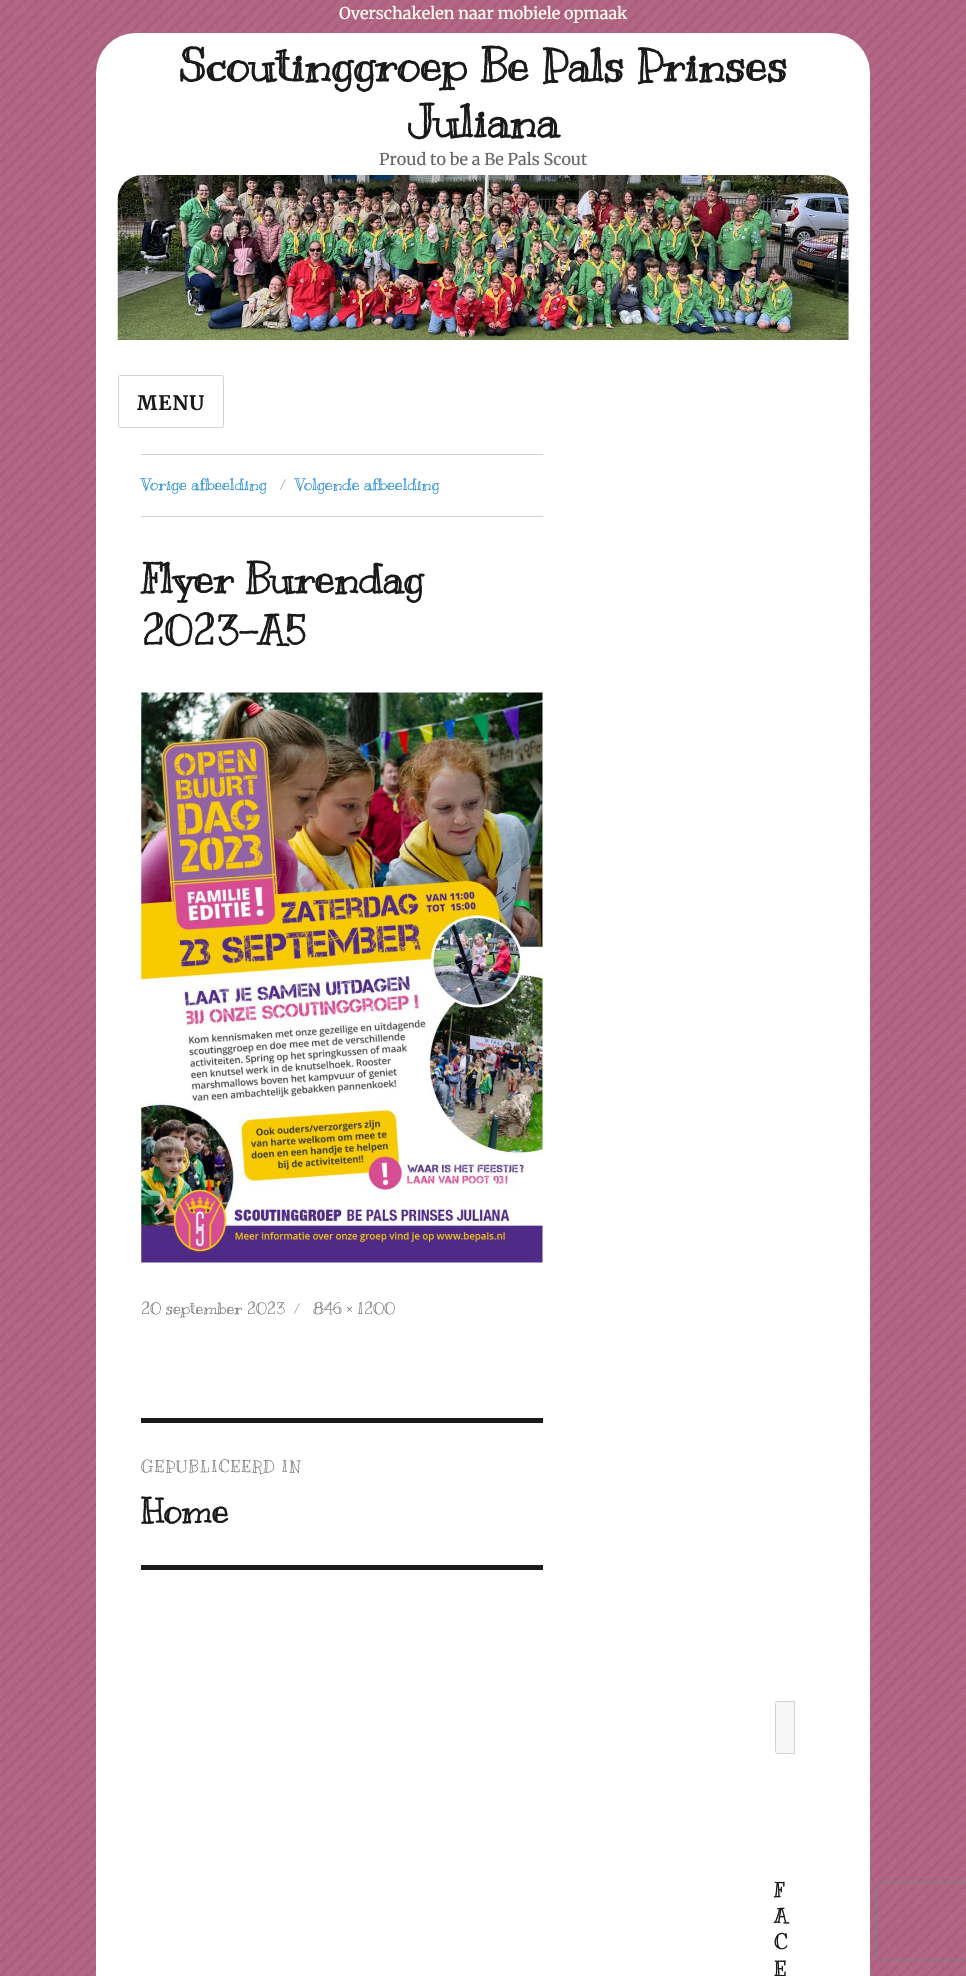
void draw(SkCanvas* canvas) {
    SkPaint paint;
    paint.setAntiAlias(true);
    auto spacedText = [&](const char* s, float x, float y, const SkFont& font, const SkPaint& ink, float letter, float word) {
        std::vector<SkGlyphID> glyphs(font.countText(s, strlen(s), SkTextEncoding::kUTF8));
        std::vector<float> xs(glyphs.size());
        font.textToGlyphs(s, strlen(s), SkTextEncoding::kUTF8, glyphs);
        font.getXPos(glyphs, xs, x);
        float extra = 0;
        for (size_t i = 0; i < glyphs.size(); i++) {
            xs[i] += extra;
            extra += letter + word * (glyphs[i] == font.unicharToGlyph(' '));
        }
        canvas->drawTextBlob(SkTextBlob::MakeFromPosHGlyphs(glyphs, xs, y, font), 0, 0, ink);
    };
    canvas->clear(0xFFB26685);
    canvas->drawImageRect(SkImages::DeferredFromEncodedData(SkData::MakeFromFileName("img1.png")), SkRect::MakeXYWH(0, 0, 966, 1976), SkSamplingOptions());
    SkFont font1(fontMgr->matchFamilyStyle("Merriweather", SkFontStyle::Normal()), 16.25f);
    font1.setSubpixel(true);
    paint.setColor(0xFFFFFFEE);
    canvas->drawString("Overschakelen naar mobiele opmaak", 339, 19, font1, paint);
    paint.setColor(0xFFFFFFFF);
    canvas->drawRoundRect(SkRect::MakeXYWH(96, 33, 774, 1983), 40, 40, paint);
    SkFont font2(fontMgr->matchFamilyStyle("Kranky", SkFontStyle::Bold()), 45);
    font2.setSubpixel(true);
    paint.setColor(0xFF1A1A1A);
    canvas->drawString("Scoutinggroep Be Pals Prinses", 179, 81, font2, paint);
    canvas->drawString("Juliana", 408, 137, font2, paint);
    paint.setColor(0xFF686868);
    canvas->drawString("Proud to be a Be Pals Scout", 379, 165, font1, paint);
    canvas->drawImageRect(SkImages::DeferredFromEncodedData(SkData::MakeFromFileName("img2.png")), SkRect::MakeXYWH(117, 175, 732, 165), SkSamplingOptions());
    paint.setStyle(SkPaint::kStroke_Style);
    paint.setStrokeWidth(1);
    paint.setColor(0xFFD1D1D1);
    canvas->drawRoundRect(SkRect::MakeXYWH(118.5f, 375.5f, 105, 52), 2, 2, paint);
    SkFont font3(fontMgr->matchFamilyStyle("Merriweather", SkFontStyle::Bold()), 20);
    font3.setSubpixel(true);
    paint.setStyle(SkPaint::kFill_Style);
    paint.setColor(0xFF1A1A1A);
    spacedText("MENU", 137, 410, font3, paint, 1, 0);
    paint.setColor(0xFFD1D1D1);
    canvas->drawRect(SkRect::MakeXYWH(141, 454, 402, 1), paint);
    canvas->drawRect(SkRect::MakeXYWH(141, 516, 402, 1), paint);
    SkFont font4(fontMgr->matchFamilyStyle("Kranky", SkFontStyle::Normal()), 16.25f);
    font4.setSubpixel(true);
    paint.setColor(0xFF007ACC);
    canvas->drawString("Vorige afbeelding", 141, 490, font4, paint);
    paint.setColor(0xFF959595);
    canvas->drawString("/", 280, 490, font4, paint);
    paint.setColor(0xFF007ACC);
    canvas->drawString("Volgende afbeelding", 295, 490, font4, paint);
    SkFont font5(fontMgr->matchFamilyStyle("Kranky", SkFontStyle::Bold()), 41.25f);
    font5.setSubpixel(true);
    paint.setColor(0xFF1A1A1A);
    canvas->drawString("Flyer Burendag", 141, 593, font5, paint);
    canvas->drawString("2023-A5", 141, 645, font5, paint);
    canvas->drawImageRect(SkImages::DeferredFromEncodedData(SkData::MakeFromFileName("img3.png")), SkRect::MakeXYWH(141, 692, 402, 571), SkSamplingOptions());
    paint.setColor(0xFF686868);
    canvas->drawString("20 september 2023", 141, 1314, font4, paint);
    paint.setColor(0xFF959595);
    canvas->drawString("/", 294, 1314, font4, paint);
    paint.setColor(0xFF686868);
    canvas->drawString("846 × 1200", 313, 1314, font4, paint);
    paint.setColor(0xFF1A1A1A);
    canvas->drawRect(SkRect::MakeXYWH(141, 1418, 402, 5), paint);
    canvas->drawRect(SkRect::MakeXYWH(141, 1565, 402, 5), paint);
    paint.setColor(0xFF686868);
    spacedText("GEPUBLICEERD IN", 141, 1472, font4, paint, 1.25f, 0);
    SkFont font6(fontMgr->matchFamilyStyle("Kranky", SkFontStyle::Bold()), 35);
    font6.setSubpixel(true);
    paint.setColor(0xFF1A1A1A);
    canvas->drawString("Home", 141, 1523, font6, paint);
    paint.setColor(0xFFF7F7F7);
    canvas->drawPath(SkPathBuilder().moveTo(777.5f, 1701.5f).lineTo(794.5f, 1701.5f).lineTo(794.5f, 1753.5f).lineTo(777.5f, 1753.5f).cubicTo(776.5f, 1753.5f, 775.5f, 1752.5f, 775.5f, 1751.5f).lineTo(775.5f, 1703.5f).cubicTo(775.5f, 1702.5f, 776.5f, 1701.5f, 777.5f, 1701.5f).close().detach(), paint);
    paint.setStyle(SkPaint::kStroke_Style);
    paint.setColor(0xFFD1D1D1);
    canvas->drawPath(SkPathBuilder().moveTo(777.5f, 1701.5f).lineTo(794.5f, 1701.5f).lineTo(794.5f, 1753.5f).lineTo(777.5f, 1753.5f).cubicTo(776.5f, 1753.5f, 775.5f, 1752.5f, 775.5f, 1751.5f).lineTo(775.5f, 1703.5f).cubicTo(775.5f, 1702.5f, 776.5f, 1701.5f, 777.5f, 1701.5f).close().detach(), paint);
    SkFont font7(fontMgr->matchFamilyStyle("Kranky", SkFontStyle::Bold()), 20);
    font7.setSubpixel(true);
    paint.setStyle(SkPaint::kFill_Style);
    paint.setColor(0xFF1A1A1A);
    spacedText("F", 774, 1897, font7, paint, 1, 0);
    spacedText("A", 774, 1923, font7, paint, 1, 0);
    spacedText("C", 774, 1949, font7, paint, 1, 0);
    spacedText("E", 774, 1976, font7, paint, 1, 0);
    canvas->save();
    canvas->clipPath(SkPathBuilder(SkPathFillType::kEvenOdd).moveTo(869, 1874).lineTo(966, 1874).lineTo(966, 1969).lineTo(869, 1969).close().moveTo(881.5f, 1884).lineTo(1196.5f, 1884).cubicTo(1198, 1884, 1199, 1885, 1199, 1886.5f).lineTo(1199, 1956.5f).cubicTo(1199, 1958, 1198, 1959, 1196.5f, 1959).lineTo(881.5f, 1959).cubicTo(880, 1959, 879, 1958, 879, 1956.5f).lineTo(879, 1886.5f).cubicTo(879, 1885, 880, 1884, 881.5f, 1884).close().detach(), true);
    paint.setColor(0xFF808080);
    paint.setMaskFilter(SkMaskFilter::MakeBlur(kNormal_SkBlurStyle, 3));
    canvas->drawRoundRect(SkRect::MakeXYWH(879, 1884, 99, 75), 2.5f, 2.5f, paint);
    paint.setMaskFilter(nullptr);
    canvas->restore();
}
